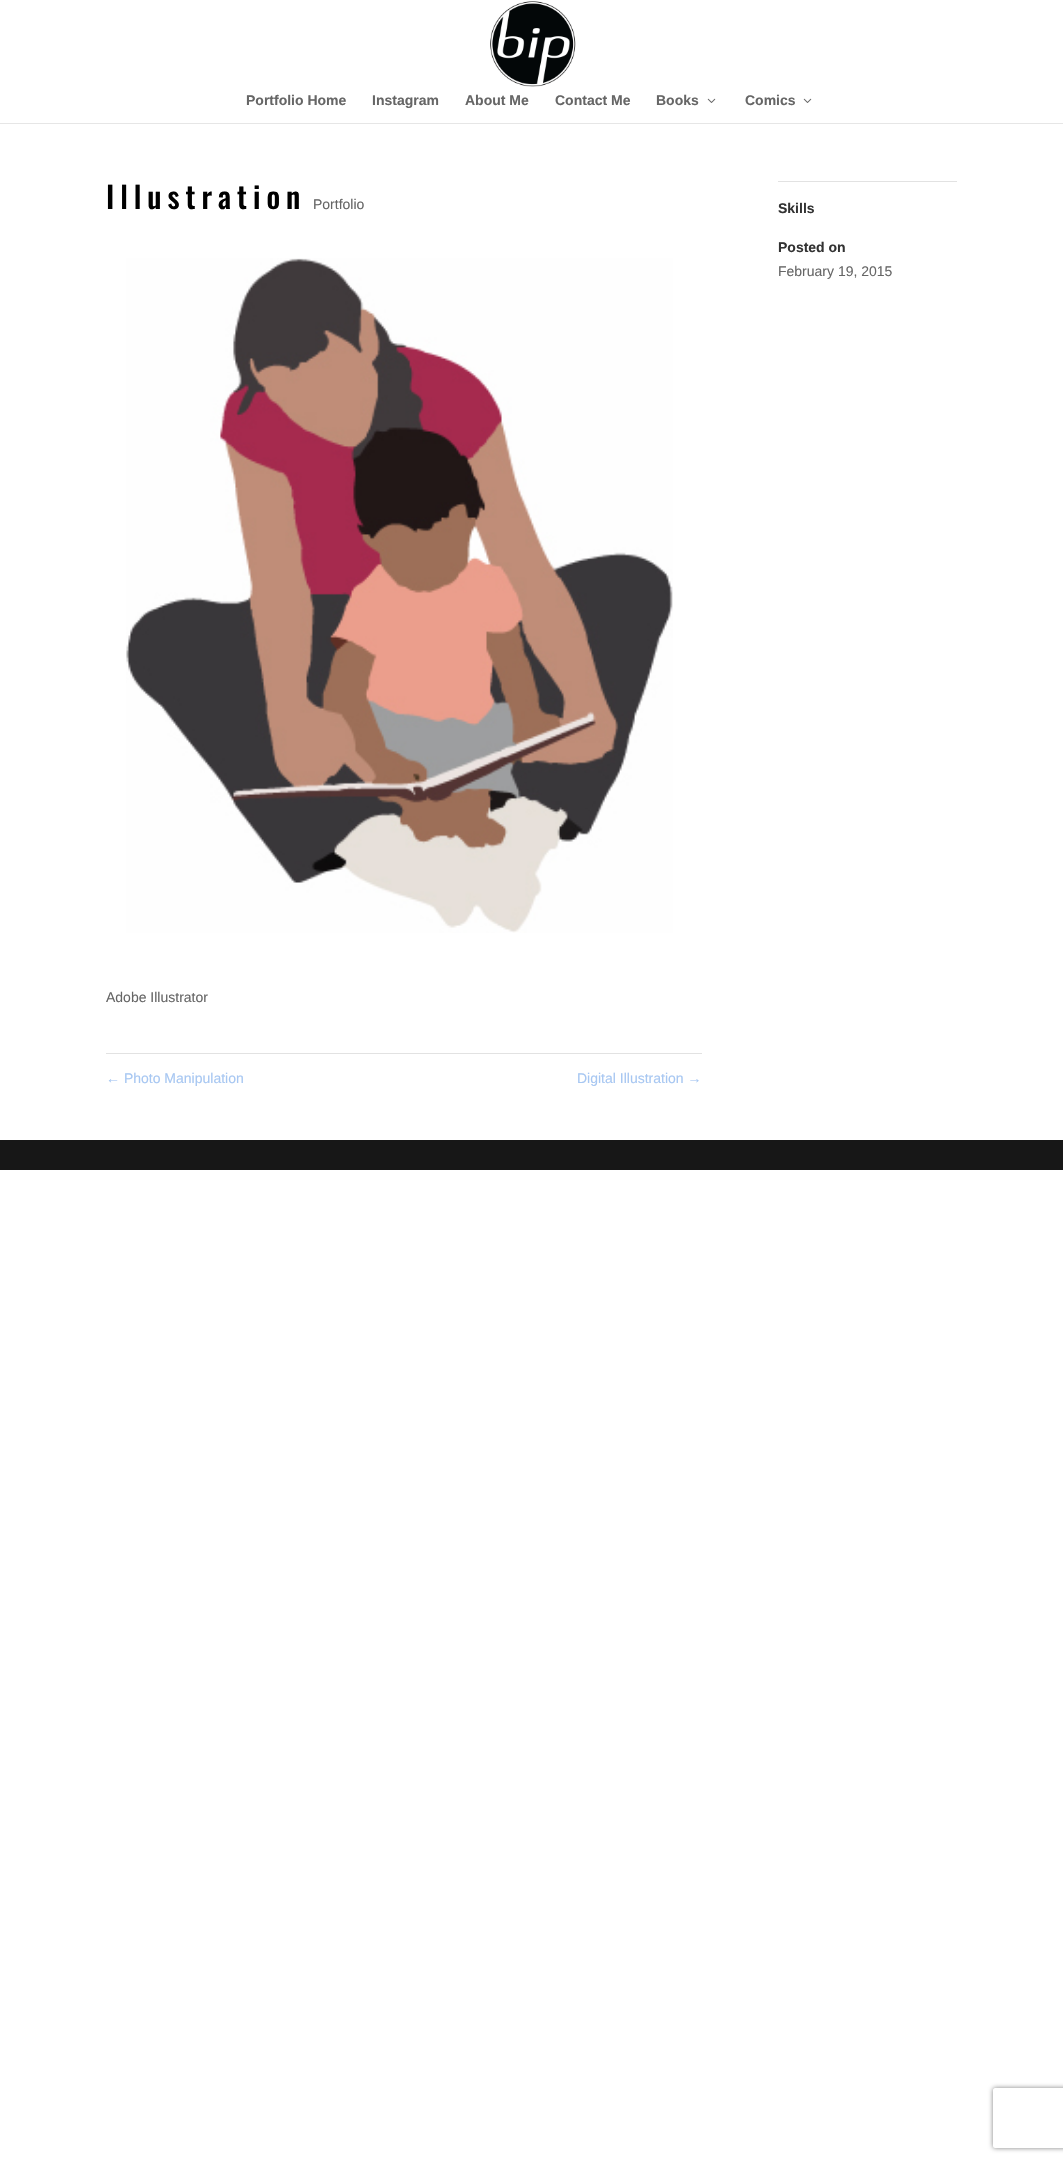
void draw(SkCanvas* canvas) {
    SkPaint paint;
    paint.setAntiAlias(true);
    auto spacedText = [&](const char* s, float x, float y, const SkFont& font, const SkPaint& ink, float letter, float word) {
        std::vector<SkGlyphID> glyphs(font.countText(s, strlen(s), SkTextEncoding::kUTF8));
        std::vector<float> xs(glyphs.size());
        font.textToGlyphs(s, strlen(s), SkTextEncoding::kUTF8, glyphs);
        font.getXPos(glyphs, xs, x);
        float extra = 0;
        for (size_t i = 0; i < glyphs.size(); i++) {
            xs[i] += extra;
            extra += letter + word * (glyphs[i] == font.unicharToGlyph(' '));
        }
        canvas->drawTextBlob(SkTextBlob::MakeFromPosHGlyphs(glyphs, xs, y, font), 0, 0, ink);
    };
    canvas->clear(0xFFFFFFFF);
    paint.setColor(0xFFE6E6E6);
    canvas->drawRect(SkRect::MakeXYWH(0, 123, 1063, 1), paint);
    canvas->drawImageRect(SkImages::DeferredFromEncodedData(SkData::MakeFromFileName("img1.png")), SkRect::MakeXYWH(490, 1, 86, 86), SkSamplingOptions());
    SkFont font1(fontMgr->matchFamilyStyle("Liberation Sans", SkFontStyle::Bold()), 14);
    font1.setSubpixel(true);
    paint.setColor(0xFF666666);
    canvas->drawString("Portfolio Home", 246, 105, font1, paint);
    canvas->drawString("Instagram", 372, 105, font1, paint);
    canvas->drawString("About Me", 465, 105, font1, paint);
    canvas->drawString("Contact Me", 555, 105, font1, paint);
    canvas->drawString("Books", 656, 105, font1, paint);
    canvas->drawImageRect(SkImages::DeferredFromEncodedData(SkData::MakeFromFileName("img2.png")), SkRect::MakeXYWH(707, 98, 9, 5), SkSamplingOptions());
    canvas->drawString("Comics", 745, 105, font1, paint);
    canvas->drawImageRect(SkImages::DeferredFromEncodedData(SkData::MakeFromFileName("img2.png")), SkRect::MakeXYWH(803, 98, 9, 5), SkSamplingOptions());
    SkFont font2(fontMgr->matchFamilyStyle("Oswald", SkFontStyle(500, SkFontStyle::kNormal_Width, SkFontStyle::kUpright_Slant)), 30);
    font2.setSubpixel(true);
    paint.setColor(0xFF000000);
    spacedText("Illustration", 106, 209, font2, paint, 6, 0);
    SkFont font3(fontMgr->matchFamilyStyle("Liberation Sans", SkFontStyle::Normal()), 14);
    font3.setSubpixel(true);
    paint.setColor(0xFF666666);
    canvas->drawString("Portfolio", 313, 209, font3, paint);
    canvas->drawImageRect(SkImages::DeferredFromEncodedData(SkData::MakeFromFileName("img3.png")), SkRect::MakeXYWH(126, 258, 547, 675), SkSamplingOptions());
    canvas->drawString("Adobe Illustrator", 106, 1002, font3, paint);
    paint.setColor(0xFFE2E2E2);
    canvas->drawRect(SkRect::MakeXYWH(106, 1053, 596, 1), paint);
    paint.setColor(0xFFA7C7F2);
    canvas->drawString("← Photo Manipulation", 106, 1083, font3, paint);
    canvas->drawString("Digital Illustration →", 577, 1083, font3, paint);
    paint.setColor(0xFFE2E2E2);
    canvas->drawRect(SkRect::MakeXYWH(778, 181, 179, 1), paint);
    paint.setColor(0xFF333333);
    canvas->drawString("Skills", 778, 213, font1, paint);
    canvas->drawString("Posted on", 778, 252, font1, paint);
    paint.setColor(0xFF666666);
    canvas->drawString("February 19, 2015", 778, 276, font3, paint);
    paint.setColor(0xFF171717);
    canvas->drawRect(SkRect::MakeXYWH(0, 1140, 1063, 30), paint);
    canvas->save();
    canvas->clipPath(SkPathBuilder(SkPathFillType::kEvenOdd).moveTo(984, 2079).lineTo(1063, 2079).lineTo(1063, 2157).lineTo(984, 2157).close().moveTo(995, 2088).lineTo(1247, 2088).cubicTo(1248, 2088, 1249, 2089, 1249, 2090).lineTo(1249, 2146).cubicTo(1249, 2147, 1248, 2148, 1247, 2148).lineTo(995, 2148).cubicTo(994, 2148, 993, 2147, 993, 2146).lineTo(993, 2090).cubicTo(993, 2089, 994, 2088, 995, 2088).close().detach(), true);
    paint.setColor(0xFF808080);
    paint.setMaskFilter(SkMaskFilter::MakeBlur(kNormal_SkBlurStyle, 2.5f));
    canvas->drawRoundRect(SkRect::MakeXYWH(993, 2088, 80, 60), 2, 2, paint);
    paint.setMaskFilter(nullptr);
    canvas->restore();
}
